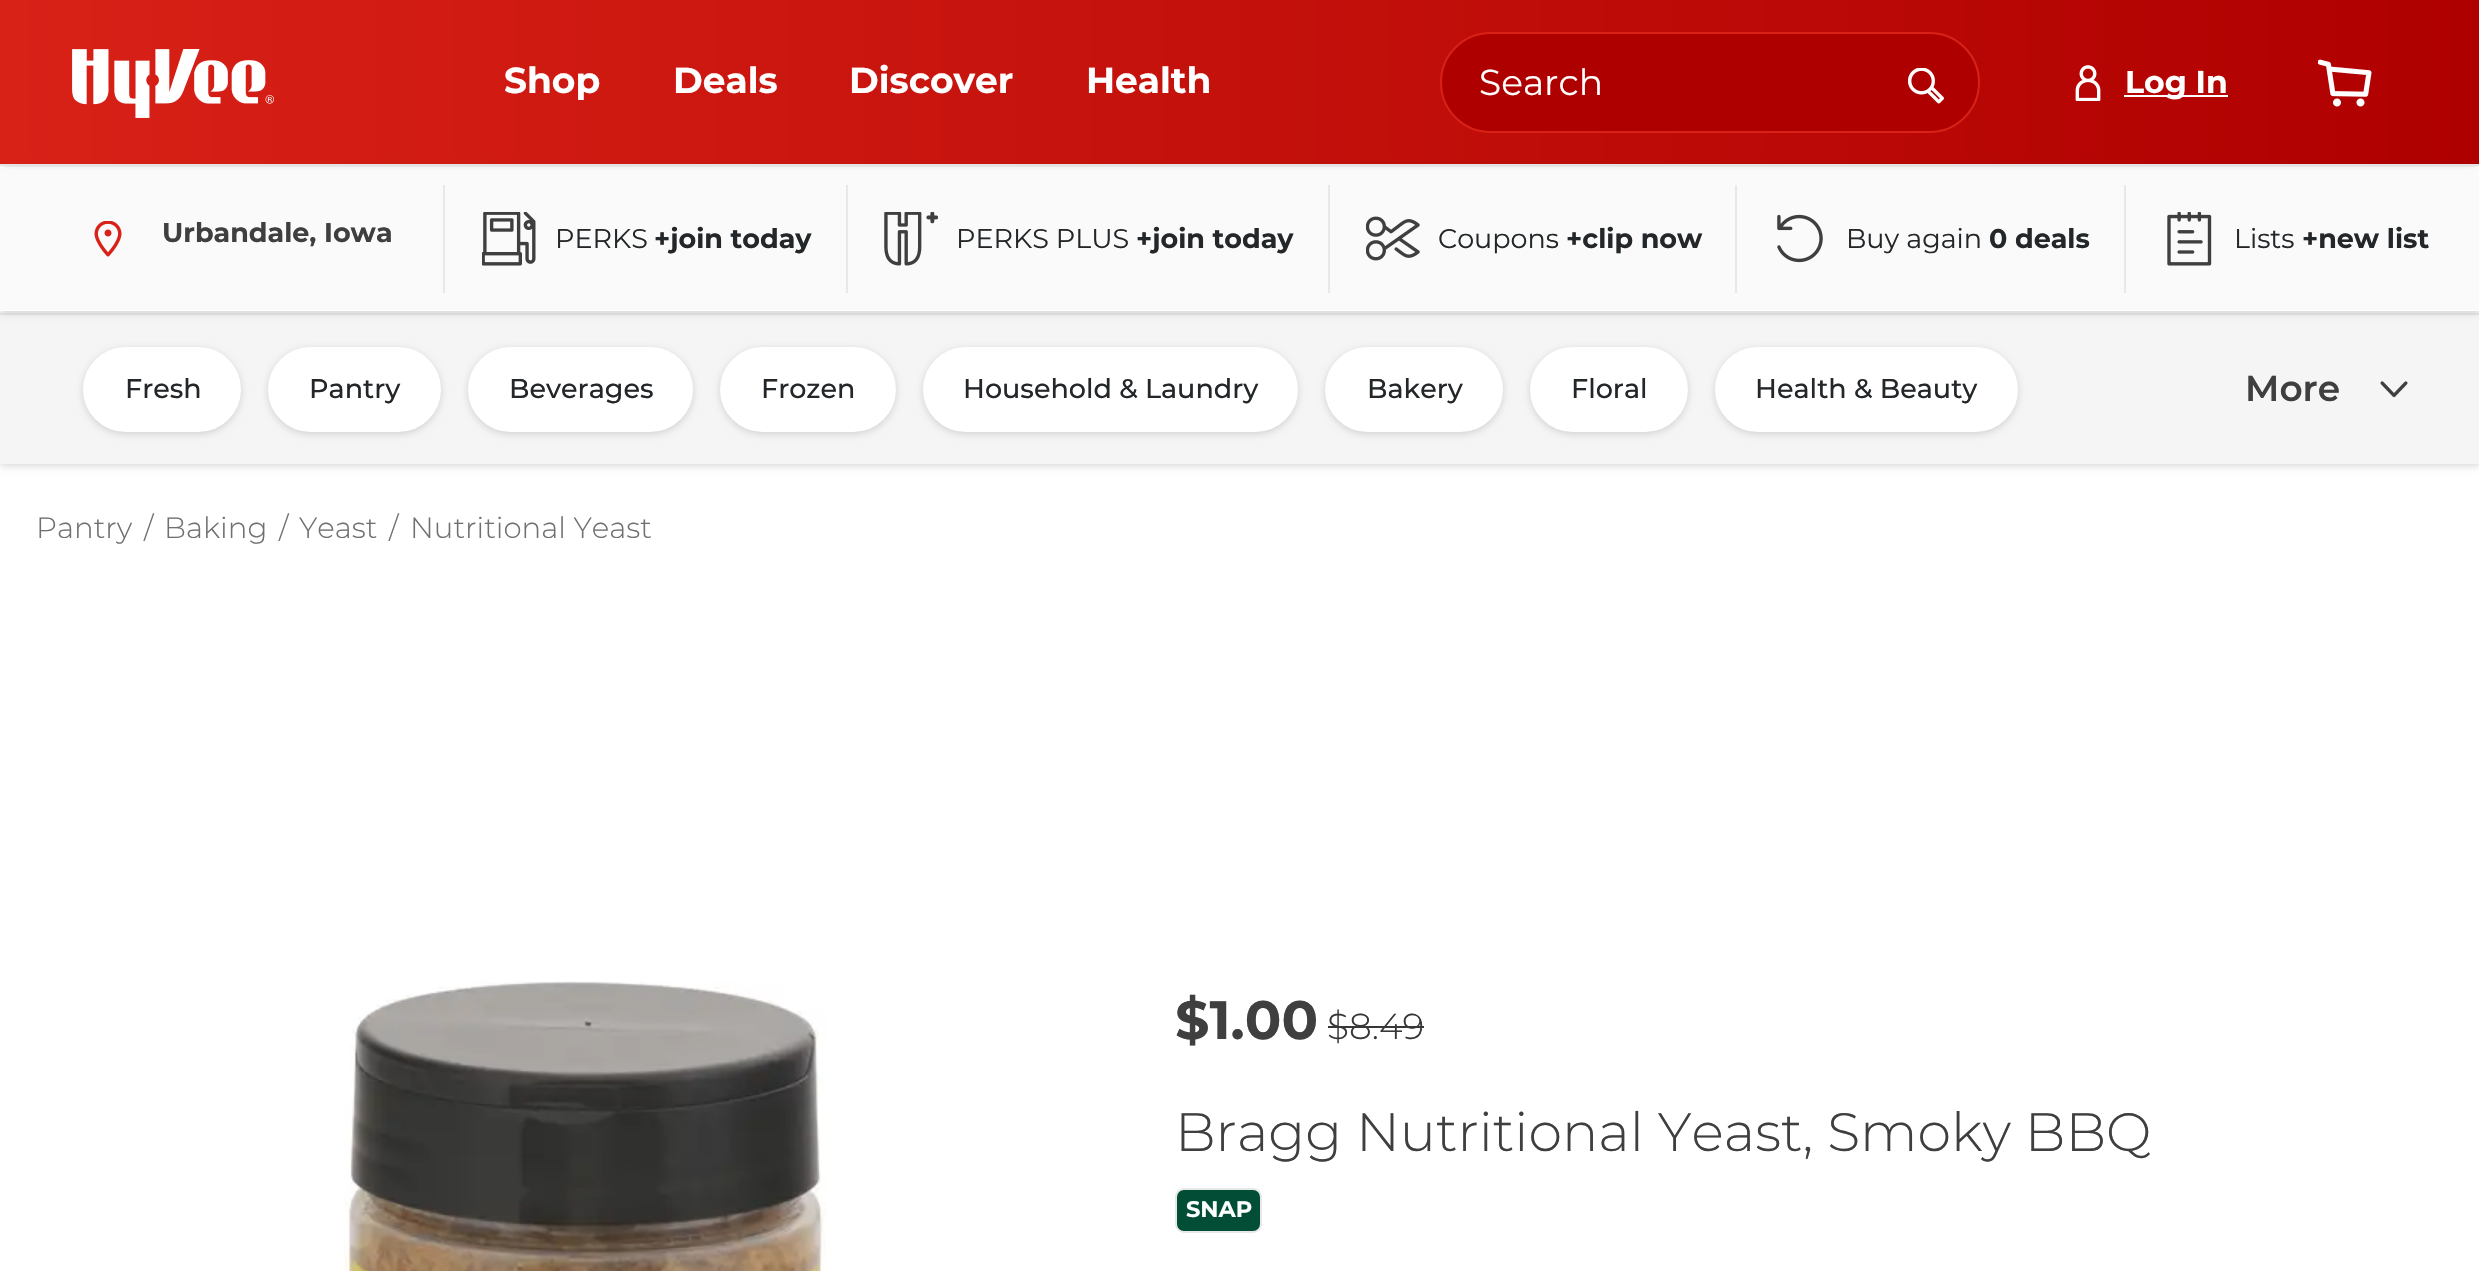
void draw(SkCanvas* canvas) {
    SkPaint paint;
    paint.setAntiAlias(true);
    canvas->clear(0xFFFFFFFF);
    paint.setColor(0x26000000);
    paint.setMaskFilter(SkMaskFilter::MakeBlur(kNormal_SkBlurStyle, 3.5f));
    canvas->drawRect(SkRect::MakeXYWH(0, 315, 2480, 151), paint);
    paint.setMaskFilter(nullptr);
    paint.setColor(0xFFFFFFFF);
    canvas->drawRect(SkRect::MakeXYWH(2, 310, 2476, 1), paint);
    {
        const SkColor colors[] = {0xFFD82117, 0xFFAF0000};
        const float stops[] = {0, 1};
        const SkPoint ends[] = {{0, 82}, {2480, 82}};
        paint.setShader(SkGradientShader::MakeLinear(ends, colors, stops, 2, SkTileMode::kClamp));
        paint.setAlpha(255);
    }
    canvas->drawRect(SkRect::MakeXYWH(0, 0, 2479, 164), paint);
    canvas->save();
    canvas->clipRect(SkRect::MakeXYWH(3, 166, 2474, 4));
    paint.setShader(nullptr);
    paint.setColor(0x33000000);
    paint.setMaskFilter(SkMaskFilter::MakeBlur(kNormal_SkBlurStyle, 4.5f));
    canvas->drawRect(SkRect::MakeXYWH(5, 9, 2470, 155), paint);
    paint.setMaskFilter(nullptr);
    canvas->restore();
    canvas->drawImageRect(SkImages::DeferredFromEncodedData(SkData::MakeFromFileName("img1.png")), SkRect::MakeXYWH(72, 49, 202, 69), SkSamplingOptions());
    SkFont font1(fontMgr->matchFamilyStyle("Montserrat", SkFontStyle::Bold()), 36);
    font1.setSubpixel(true);
    paint.setColor(0xFFFFFFFF);
    canvas->drawString("Shop", 504, 93, font1, paint);
    canvas->drawString("Deals", 673, 93, font1, paint);
    canvas->drawString("Discover", 849, 93, font1, paint);
    canvas->drawString("Health", 1086, 93, font1, paint);
    paint.setColor(0xFFAF0000);
    canvas->drawRoundRect(SkRect::MakeXYWH(1441, 33, 538, 99), 49.5f, 49.5f, paint);
    paint.setStyle(SkPaint::kStroke_Style);
    paint.setStrokeWidth(2);
    paint.setColor(0xFFD82117);
    canvas->drawRoundRect(SkRect::MakeXYWH(1441, 33, 538, 99), 49.5f, 49.5f, paint);
    SkFont font2(fontMgr->matchFamilyStyle("Montserrat", SkFontStyle::Normal()), 36);
    font2.setSubpixel(true);
    paint.setStyle(SkPaint::kFill_Style);
    paint.setColor(0xFFFFFFFF);
    canvas->drawString("Search", 1479, 95, font2, paint);
    canvas->drawImageRect(SkImages::DeferredFromEncodedData(SkData::MakeFromFileName("img2.png")), SkRect::MakeXYWH(1908, 68, 36, 36), SkSamplingOptions());
    canvas->drawImageRect(SkImages::DeferredFromEncodedData(SkData::MakeFromFileName("img3.png")), SkRect::MakeXYWH(2075, 65, 26, 36), SkSamplingOptions());
    canvas->drawRect(SkRect::MakeXYWH(2124, 95, 104, 2), paint);
    SkFont font3(fontMgr->matchFamilyStyle("Montserrat", SkFontStyle::Bold()), 31.5f);
    font3.setSubpixel(true);
    canvas->drawString("Log In", 2125, 93, font3, paint);
    canvas->drawImageRect(SkImages::DeferredFromEncodedData(SkData::MakeFromFileName("img4.png")), SkRect::MakeXYWH(2318, 59, 54, 48), SkSamplingOptions());
    paint.setColor(0xFFE8E8E8);
    canvas->drawRect(SkRect::MakeXYWH(0, 164, 2479, 2), paint);
    paint.setColor(0xFFF5F5F5);
    canvas->drawRect(SkRect::MakeXYWH(0, 315, 2479, 149), paint);
    paint.setColor(0xFFE8E8E8);
    canvas->drawRect(SkRect::MakeXYWH(0, 313, 2479, 2), paint);
    canvas->save();
    canvas->clipPath(SkPathBuilder(SkPathFillType::kEvenOdd).moveTo(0, 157).lineTo(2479, 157).lineTo(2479, 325).lineTo(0, 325).close().moveTo(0, 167).lineTo(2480, 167).lineTo(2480, 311).lineTo(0, 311).close().detach(), true);
    paint.setColor(0x26000000);
    paint.setMaskFilter(SkMaskFilter::MakeBlur(kNormal_SkBlurStyle, 3.5f));
    canvas->drawRect(SkRect::MakeXYWH(0, 169, 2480, 144), paint);
    paint.setMaskFilter(nullptr);
    canvas->restore();
    paint.setColor(0x80F5F5F5);
    canvas->drawRect(SkRect::MakeXYWH(0, 167, 2479, 143), paint);
    canvas->drawImageRect(SkImages::DeferredFromEncodedData(SkData::MakeFromFileName("img5.png")), SkRect::MakeXYWH(94, 221, 28, 36), SkSamplingOptions());
    SkFont font4(fontMgr->matchFamilyStyle("Montserrat", SkFontStyle::Bold()), 27);
    font4.setSubpixel(true);
    paint.setColor(0xFF3F3F3F);
    canvas->drawString("Urbandale, Iowa", 162, 242, font4, paint);
    paint.setColor(0xFFE8E8E8);
    canvas->drawRect(SkRect::MakeXYWH(443, 185, 2, 108), paint);
    canvas->drawImageRect(SkImages::DeferredFromEncodedData(SkData::MakeFromFileName("img6.png")), SkRect::MakeXYWH(482, 212, 54, 54), SkSamplingOptions());
    SkFont font5(fontMgr->matchFamilyStyle("Montserrat", SkFontStyle::Normal()), 27);
    font5.setSubpixel(true);
    paint.setColor(0xFF242729);
    canvas->drawString("PERKS", 555, 248, font5, paint);
    canvas->drawString("+join today", 654, 248, font4, paint);
    paint.setColor(0xFFE8E8E8);
    canvas->drawRect(SkRect::MakeXYWH(846, 185, 2, 108), paint);
    canvas->drawImageRect(SkImages::DeferredFromEncodedData(SkData::MakeFromFileName("img7.png")), SkRect::MakeXYWH(884, 212, 54, 54), SkSamplingOptions());
    paint.setColor(0xFF242729);
    canvas->drawString("PERKS PLUS", 956, 248, font5, paint);
    canvas->drawString("+join today", 1136, 248, font4, paint);
    paint.setColor(0xFFE8E8E8);
    canvas->drawRect(SkRect::MakeXYWH(1328, 185, 2, 108), paint);
    canvas->drawImageRect(SkImages::DeferredFromEncodedData(SkData::MakeFromFileName("img8.png")), SkRect::MakeXYWH(1366, 216, 54, 45), SkSamplingOptions());
    paint.setColor(0xFF242729);
    canvas->drawString("Coupons", 1438, 248, font5, paint);
    canvas->drawString("+clip now", 1566, 248, font4, paint);
    paint.setColor(0xFFE8E8E8);
    canvas->drawRect(SkRect::MakeXYWH(1735, 185, 2, 108), paint);
    canvas->drawImageRect(SkImages::DeferredFromEncodedData(SkData::MakeFromFileName("img9.png")), SkRect::MakeXYWH(1777, 214, 46, 49), SkSamplingOptions());
    paint.setColor(0xFF242729);
    canvas->drawString("Buy again", 1846, 248, font5, paint);
    canvas->drawString("0 deals", 1989, 248, font4, paint);
    paint.setColor(0xFFE8E8E8);
    canvas->drawRect(SkRect::MakeXYWH(2124, 185, 2, 108), paint);
    canvas->drawImageRect(SkImages::DeferredFromEncodedData(SkData::MakeFromFileName("img10.png")), SkRect::MakeXYWH(2167, 212, 45, 54), SkSamplingOptions());
    paint.setColor(0xFF242729);
    canvas->drawString("Lists", 2234, 248, font5, paint);
    canvas->drawString("+new list", 2302, 248, font4, paint);
    paint.setColor(0x26000000);
    paint.setMaskFilter(SkMaskFilter::MakeBlur(kNormal_SkBlurStyle, 3.5f));
    canvas->drawRoundRect(SkRect::MakeXYWH(83, 349, 158, 85), 42.5f, 42.5f, paint);
    paint.setMaskFilter(nullptr);
    paint.setColor(0xFFFFFFFF);
    canvas->drawRoundRect(SkRect::MakeXYWH(85.5f, 349.5f, 153, 80), 40, 40, paint);
    paint.setStyle(SkPaint::kStroke_Style);
    paint.setStrokeWidth(5);
    canvas->drawRoundRect(SkRect::MakeXYWH(85.5f, 349.5f, 153, 80), 40, 40, paint);
    SkFont font6(fontMgr->matchFamilyStyle("Montserrat", SkFontStyle(500, SkFontStyle::kNormal_Width, SkFontStyle::kUpright_Slant)), 27);
    font6.setSubpixel(true);
    paint.setStyle(SkPaint::kFill_Style);
    paint.setColor(0xFF242729);
    canvas->drawString("Fresh", 125, 398, font6, paint);
    paint.setColor(0x26000000);
    paint.setMaskFilter(SkMaskFilter::MakeBlur(kNormal_SkBlurStyle, 3.5f));
    canvas->drawRoundRect(SkRect::MakeXYWH(268, 349, 173, 85), 42.5f, 42.5f, paint);
    paint.setMaskFilter(nullptr);
    paint.setColor(0xFFFFFFFF);
    canvas->drawRoundRect(SkRect::MakeXYWH(270.5f, 349.5f, 168, 80), 40, 40, paint);
    paint.setStyle(SkPaint::kStroke_Style);
    canvas->drawRoundRect(SkRect::MakeXYWH(270.5f, 349.5f, 168, 80), 40, 40, paint);
    paint.setStyle(SkPaint::kFill_Style);
    paint.setColor(0xFF242729);
    canvas->drawString("Pantry", 309, 398, font6, paint);
    paint.setColor(0x26000000);
    paint.setMaskFilter(SkMaskFilter::MakeBlur(kNormal_SkBlurStyle, 3.5f));
    canvas->drawRoundRect(SkRect::MakeXYWH(468, 349, 225, 85), 42.5f, 42.5f, paint);
    paint.setMaskFilter(nullptr);
    paint.setColor(0xFFFFFFFF);
    canvas->drawRoundRect(SkRect::MakeXYWH(470.5f, 349.5f, 220, 80), 40, 40, paint);
    paint.setStyle(SkPaint::kStroke_Style);
    canvas->drawRoundRect(SkRect::MakeXYWH(470.5f, 349.5f, 220, 80), 40, 40, paint);
    paint.setStyle(SkPaint::kFill_Style);
    paint.setColor(0xFF242729);
    canvas->drawString("Beverages", 509, 398, font6, paint);
    paint.setColor(0x26000000);
    paint.setMaskFilter(SkMaskFilter::MakeBlur(kNormal_SkBlurStyle, 3.5f));
    canvas->drawRoundRect(SkRect::MakeXYWH(720, 349, 176, 85), 42.5f, 42.5f, paint);
    paint.setMaskFilter(nullptr);
    paint.setColor(0xFFFFFFFF);
    canvas->drawRoundRect(SkRect::MakeXYWH(722.5f, 349.5f, 171, 80), 40, 40, paint);
    paint.setStyle(SkPaint::kStroke_Style);
    canvas->drawRoundRect(SkRect::MakeXYWH(722.5f, 349.5f, 171, 80), 40, 40, paint);
    paint.setStyle(SkPaint::kFill_Style);
    paint.setColor(0xFF242729);
    canvas->drawString("Frozen", 761, 398, font6, paint);
    paint.setColor(0x26000000);
    paint.setMaskFilter(SkMaskFilter::MakeBlur(kNormal_SkBlurStyle, 3.5f));
    canvas->drawRoundRect(SkRect::MakeXYWH(923, 349, 375, 85), 42.5f, 42.5f, paint);
    paint.setMaskFilter(nullptr);
    paint.setColor(0xFFFFFFFF);
    canvas->drawRoundRect(SkRect::MakeXYWH(925.5f, 349.5f, 370, 80), 40, 40, paint);
    paint.setStyle(SkPaint::kStroke_Style);
    canvas->drawRoundRect(SkRect::MakeXYWH(925.5f, 349.5f, 370, 80), 40, 40, paint);
    paint.setStyle(SkPaint::kFill_Style);
    paint.setColor(0xFF242729);
    canvas->drawString("Household & Laundry", 963, 398, font6, paint);
    paint.setColor(0x26000000);
    paint.setMaskFilter(SkMaskFilter::MakeBlur(kNormal_SkBlurStyle, 3.5f));
    canvas->drawRoundRect(SkRect::MakeXYWH(1325, 349, 178, 85), 42.5f, 42.5f, paint);
    paint.setMaskFilter(nullptr);
    paint.setColor(0xFFFFFFFF);
    canvas->drawRoundRect(SkRect::MakeXYWH(1327.5f, 349.5f, 173, 80), 40, 40, paint);
    paint.setStyle(SkPaint::kStroke_Style);
    canvas->drawRoundRect(SkRect::MakeXYWH(1327.5f, 349.5f, 173, 80), 40, 40, paint);
    paint.setStyle(SkPaint::kFill_Style);
    paint.setColor(0xFF242729);
    canvas->drawString("Bakery", 1367, 398, font6, paint);
    paint.setColor(0x26000000);
    paint.setMaskFilter(SkMaskFilter::MakeBlur(kNormal_SkBlurStyle, 3.5f));
    canvas->drawRoundRect(SkRect::MakeXYWH(1530, 349, 158, 85), 42.5f, 42.5f, paint);
    paint.setMaskFilter(nullptr);
    paint.setColor(0xFFFFFFFF);
    canvas->drawRoundRect(SkRect::MakeXYWH(1532.5f, 349.5f, 153, 80), 40, 40, paint);
    paint.setStyle(SkPaint::kStroke_Style);
    canvas->drawRoundRect(SkRect::MakeXYWH(1532.5f, 349.5f, 153, 80), 40, 40, paint);
    paint.setStyle(SkPaint::kFill_Style);
    paint.setColor(0xFF242729);
    canvas->drawString("Floral", 1571, 398, font6, paint);
    paint.setColor(0x26000000);
    paint.setMaskFilter(SkMaskFilter::MakeBlur(kNormal_SkBlurStyle, 3.5f));
    canvas->drawRoundRect(SkRect::MakeXYWH(1715, 349, 303, 85), 42.5f, 42.5f, paint);
    paint.setMaskFilter(nullptr);
    paint.setColor(0xFFFFFFFF);
    canvas->drawRoundRect(SkRect::MakeXYWH(1717.5f, 349.5f, 298, 80), 40, 40, paint);
    paint.setStyle(SkPaint::kStroke_Style);
    canvas->drawRoundRect(SkRect::MakeXYWH(1717.5f, 349.5f, 298, 80), 40, 40, paint);
    paint.setStyle(SkPaint::kFill_Style);
    paint.setColor(0xFF242729);
    canvas->drawString("Health & Beauty", 1755, 398, font6, paint);
    SkFont font7(fontMgr->matchFamilyStyle("Montserrat", SkFontStyle(600, SkFontStyle::kNormal_Width, SkFontStyle::kUpright_Slant)), 36);
    font7.setSubpixel(true);
    paint.setColor(0xFF3F3F3F);
    canvas->drawString("More", 2245, 401, font7, paint);
    canvas->drawImageRect(SkImages::DeferredFromEncodedData(SkData::MakeFromFileName("img11.png")), SkRect::MakeXYWH(2380, 381, 28, 17), SkSamplingOptions());
    SkFont font8(fontMgr->matchFamilyStyle("Montserrat", SkFontStyle(300, SkFontStyle::kNormal_Width, SkFontStyle::kUpright_Slant)), 29.25f);
    font8.setSubpixel(true);
    paint.setColor(0xFF707070);
    canvas->drawString("Pantry", 36, 538, font8, paint);
    canvas->drawString("/", 144, 538, font8, paint);
    canvas->drawString("Baking", 164, 538, font8, paint);
    canvas->drawString("/", 279, 538, font8, paint);
    canvas->drawString("Yeast", 299, 538, font8, paint);
    canvas->drawString("/", 389, 538, font8, paint);
    canvas->drawString("Nutritional Yeast", 410, 538, font8, paint);
    canvas->drawImageRect(SkImages::DeferredFromEncodedData(SkData::MakeFromFileName("img12.png")), SkRect::MakeXYWH(344, 981, 482, 290), SkSamplingOptions());
    SkFont font9(fontMgr->matchFamilyStyle("Montserrat", SkFontStyle::Bold()), 54);
    font9.setSubpixel(true);
    paint.setColor(0xFF3F3F3F);
    canvas->drawString("$1.00", 1175, 1039, font9, paint);
    SkFont font10(fontMgr->matchFamilyStyle("Montserrat", SkFontStyle(300, SkFontStyle::kNormal_Width, SkFontStyle::kUpright_Slant)), 36);
    font10.setSubpixel(true);
    paint.setColor(0xFF373737);
    canvas->drawString("$8.49", 1327, 1039, font10, paint);
    canvas->drawRect(SkRect::MakeXYWH(1328, 1026, 96, 2), paint);
    SkFont font11(fontMgr->matchFamilyStyle("Montserrat", SkFontStyle(300, SkFontStyle::kNormal_Width, SkFontStyle::kUpright_Slant)), 54);
    font11.setSubpixel(true);
    paint.setColor(0xFF3F3F3F);
    canvas->drawString("Bragg Nutritional Yeast, Smoky BBQ", 1175, 1151, font11, paint);
    paint.setColor(0xFF014D36);
    canvas->drawRoundRect(SkRect::MakeXYWH(1176, 1189, 85, 43), 8, 8, paint);
    paint.setStyle(SkPaint::kStroke_Style);
    paint.setStrokeWidth(2);
    paint.setColor(0xFFE8E8E8);
    canvas->drawRoundRect(SkRect::MakeXYWH(1176, 1189, 85, 43), 8, 8, paint);
    SkFont font12(fontMgr->matchFamilyStyle("Montserrat", SkFontStyle::Bold()), 22.5f);
    font12.setSubpixel(true);
    paint.setStyle(SkPaint::kFill_Style);
    paint.setColor(0xFFFFFFFF);
    canvas->drawString("SNAP", 1186, 1217, font12, paint);
}
